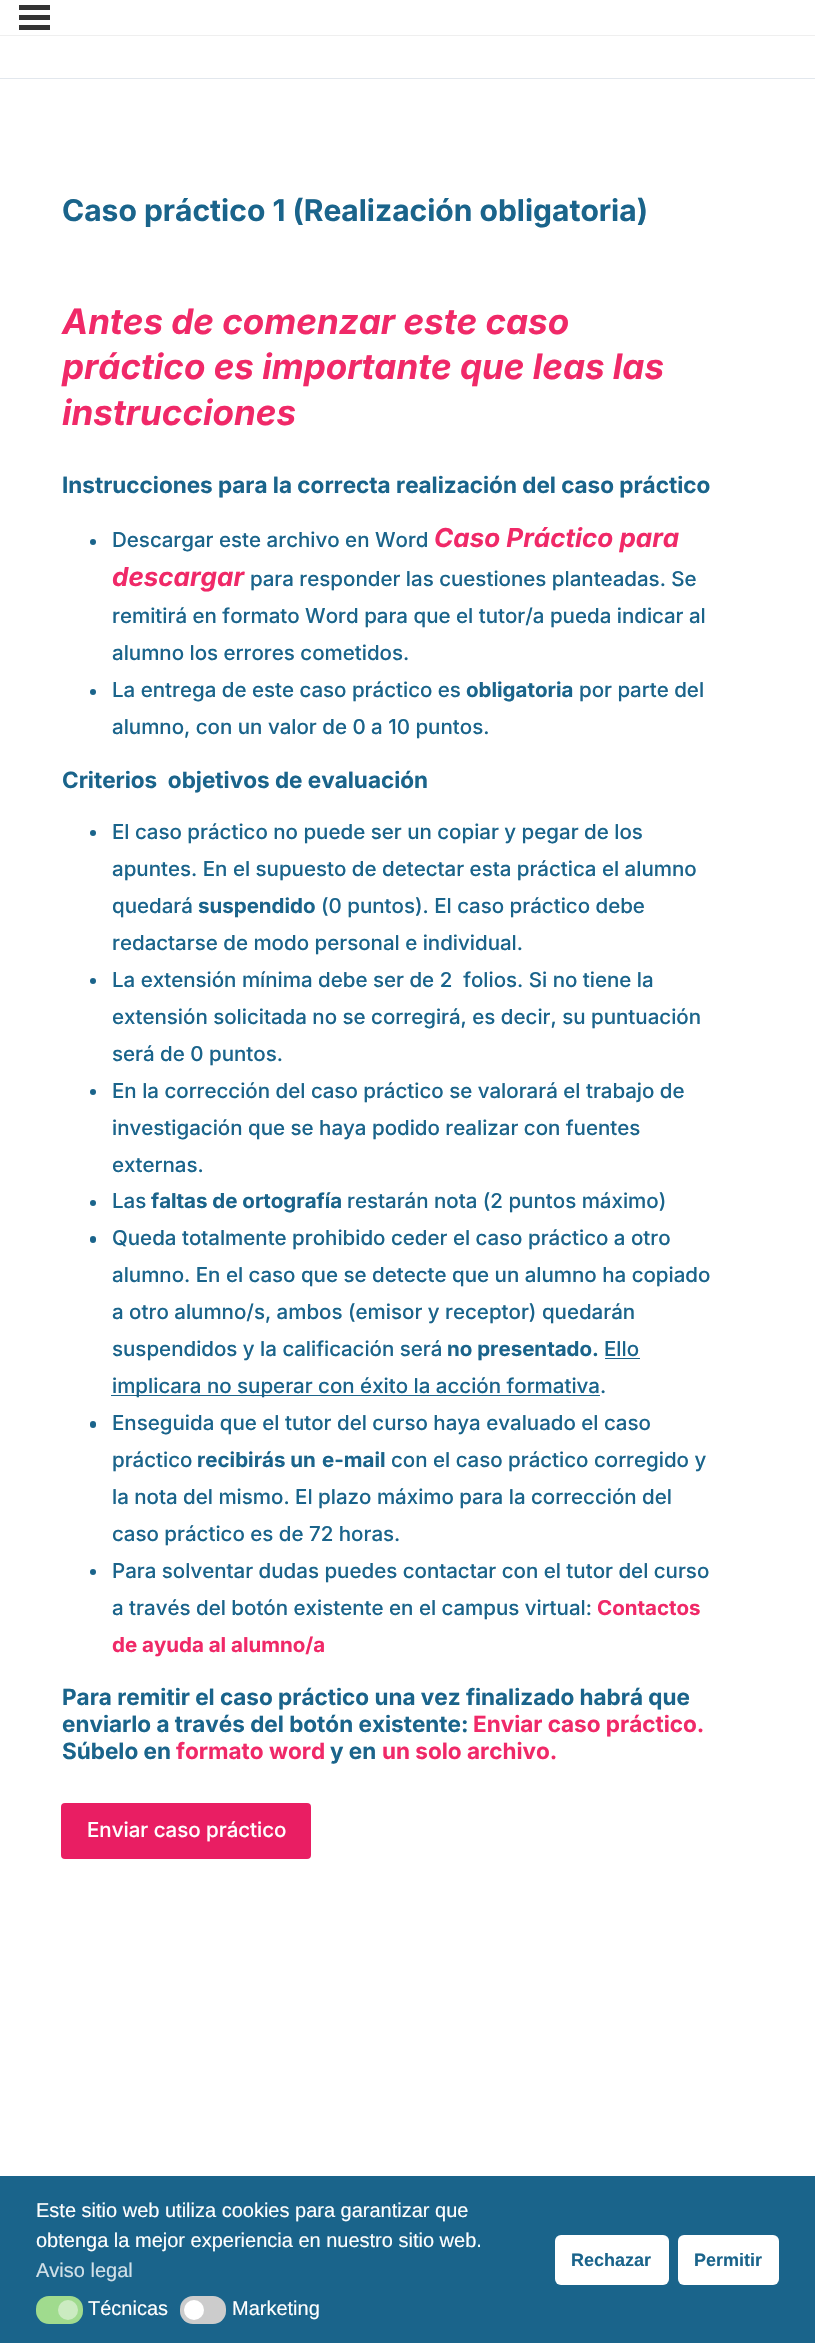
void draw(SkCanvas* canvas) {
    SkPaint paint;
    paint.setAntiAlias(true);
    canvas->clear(0xFFFFFFFF);
    paint.setColor(0xFFE2E7ED);
    canvas->drawRect(SkRect::MakeXYWH(0, 78, 815, 1), paint);
    paint.setColor(0xFF333333);
    canvas->drawRect(SkRect::MakeXYWH(19, 5, 31, 5), paint);
    canvas->drawRect(SkRect::MakeXYWH(19, 15, 31, 5), paint);
    canvas->drawRect(SkRect::MakeXYWH(19, 25, 31, 5), paint);
    paint.setColor(0xFFEFEFEF);
    canvas->drawRect(SkRect::MakeXYWH(0, 35, 815, 1), paint);
    SkFont font1(fontMgr->matchFamilyStyle("Inter", SkFontStyle::Bold()), 30);
    font1.setSubpixel(true);
    paint.setColor(0xFF1A648B);
    canvas->drawString("Caso práctico 1 (Realización obligatoria)", 62, 221, font1, paint);
    SkFont font2(fontMgr->matchFamilyStyle("Inter", SkFontStyle::BoldItalic()), 35);
    font2.setSubpixel(true);
    paint.setColor(0xFFF02968);
    canvas->drawString("Antes de comenzar este caso", 62, 334, font2, paint);
    canvas->drawString("práctico es importante que leas las", 62, 379, font2, paint);
    canvas->drawString("instrucciones", 62, 425, font2, paint);
    SkFont font3(fontMgr->matchFamilyStyle("Inter", SkFontStyle::Bold()), 22.5f);
    font3.setSubpixel(true);
    paint.setColor(0xFF1A648B);
    canvas->drawString("Instrucciones para la correcta realización del caso práctico", 62, 493, font3, paint);
    canvas->drawCircle(93, 542, 3, paint);
    SkFont font4(fontMgr->matchFamilyStyle("Inter", SkFontStyle(500, SkFontStyle::kNormal_Width, SkFontStyle::kUpright_Slant)), 20.5f);
    font4.setSubpixel(true);
    canvas->drawString("Descargar este archivo en Word", 112, 547, font4, paint);
    SkFont font5(fontMgr->matchFamilyStyle("Inter", SkFontStyle::BoldItalic()), 26);
    font5.setSubpixel(true);
    paint.setColor(0xFFF02968);
    canvas->drawString("Caso Práctico para", 434, 547, font5, paint);
    canvas->drawString("descargar", 112, 586, font5, paint);
    paint.setColor(0xFF1A648B);
    canvas->drawString("para responder las cuestiones planteadas. Se", 250, 586, font4, paint);
    canvas->drawString("remitirá en formato Word para que el tutor/a pueda indicar al", 112, 623, font4, paint);
    canvas->drawString("alumno los errores cometidos.", 112, 660, font4, paint);
    canvas->drawCircle(93, 692, 3, paint);
    canvas->drawString("La entrega de este caso práctico es", 112, 697, font4, paint);
    SkFont font6(fontMgr->matchFamilyStyle("Inter", SkFontStyle::Bold()), 20.5f);
    font6.setSubpixel(true);
    canvas->drawString("obligatoria", 466, 697, font6, paint);
    canvas->drawString("por parte del", 579, 697, font4, paint);
    canvas->drawString("alumno, con un valor de 0 a 10 puntos.", 112, 734, font4, paint);
    canvas->drawString("Criterios  objetivos de evaluación", 62, 788, font3, paint);
    canvas->drawCircle(93, 833, 3, paint);
    canvas->drawString("El caso práctico no puede ser un copiar y pegar de los", 112, 839, font4, paint);
    canvas->drawString("apuntes. En el supuesto de detectar esta práctica el alumno", 112, 876, font4, paint);
    canvas->drawString("quedará", 112, 913, font4, paint);
    canvas->drawString("suspendido", 198, 913, font6, paint);
    canvas->drawString("(0 puntos). El caso práctico debe", 321, 913, font4, paint);
    canvas->drawString("redactarse de modo personal e individual.", 112, 950, font4, paint);
    canvas->drawCircle(93, 981, 3, paint);
    canvas->drawString("La extensión mínima debe ser de 2  folios. Si no tiene la", 112, 987, font4, paint);
    canvas->drawString("extensión solicitada no se corregirá, es decir, su puntuación", 112, 1024, font4, paint);
    canvas->drawString("será de 0 puntos.", 112, 1061, font4, paint);
    canvas->drawCircle(93, 1092, 3, paint);
    canvas->drawString("En la corrección del caso práctico se valorará el trabajo de", 112, 1098, font4, paint);
    canvas->drawString("investigación que se haya podido realizar con fuentes", 112, 1135, font4, paint);
    canvas->drawString("externas.", 112, 1172, font4, paint);
    canvas->drawCircle(93, 1203, 3, paint);
    canvas->drawString("Las", 112, 1208, font4, paint);
    canvas->drawString("faltas de ortografía", 151, 1208, font6, paint);
    canvas->drawString("restarán nota (2 puntos máximo)", 347, 1208, font4, paint);
    canvas->drawRoundRect(SkRect::MakeXYWH(90, 1236, 6, 7), 3, 3, paint);
    canvas->drawString("Queda totalmente prohibido ceder el caso práctico a otro", 112, 1245, font4, paint);
    canvas->drawString("alumno. En el caso que se detecte que un alumno ha copiado", 112, 1282, font4, paint);
    canvas->drawString("a otro alumno/s, ambos (emisor y receptor) quedarán", 112, 1319, font4, paint);
    canvas->drawString("suspendidos y la calificación será", 112, 1356, font4, paint);
    canvas->drawString("no presentado.", 447, 1356, font6, paint);
    canvas->drawString("Ello", 604, 1356, font4, paint);
    canvas->drawRect(SkRect::MakeXYWH(605, 1358, 35, 1), paint);
    canvas->drawRect(SkRect::MakeXYWH(111, 1395, 489, 1), paint);
    canvas->drawString("implicara no superar con éxito la acción formativa.", 112, 1393, font4, paint);
    canvas->drawRoundRect(SkRect::MakeXYWH(90, 1421, 6, 7), 3, 3, paint);
    canvas->drawString("Enseguida que el tutor del curso haya evaluado el caso", 112, 1430, font4, paint);
    canvas->drawString("práctico", 112, 1467, font4, paint);
    canvas->drawString("recibirás un", 197, 1467, font6, paint);
    canvas->drawString("e-mail", 322, 1467, font6, paint);
    canvas->drawString("con el caso práctico corregido y", 391, 1467, font4, paint);
    canvas->drawString("la nota del mismo. El plazo máximo para la corrección del", 112, 1504, font4, paint);
    canvas->drawString("caso práctico es de 72 horas.", 112, 1541, font4, paint);
    canvas->drawCircle(93, 1572, 3, paint);
    canvas->drawString("Para solventar dudas puedes contactar con el tutor del curso", 112, 1578, font4, paint);
    canvas->drawString("a través del botón existente en el campus virtual:", 112, 1615, font4, paint);
    paint.setColor(0xFFF02968);
    canvas->drawString("Contactos", 597, 1615, font6, paint);
    canvas->drawString("de ayuda al alumno/a", 112, 1652, font6, paint);
    paint.setColor(0xFF1A648B);
    canvas->drawString("Para remitir el caso práctico una vez finalizado habrá que", 62, 1705, font3, paint);
    canvas->drawString("enviarlo a través del botón existente:", 62, 1732, font3, paint);
    paint.setColor(0xFFF02968);
    canvas->drawString("Enviar caso práctico.", 473, 1732, font3, paint);
    paint.setColor(0xFF1A648B);
    canvas->drawString("Súbelo en", 62, 1759, font3, paint);
    paint.setColor(0xFFF02968);
    canvas->drawString("formato word", 176, 1759, font3, paint);
    paint.setColor(0xFF1A648B);
    canvas->drawString("y en", 330, 1759, font3, paint);
    paint.setColor(0xFFF02968);
    canvas->drawString("un solo archivo.", 382, 1759, font3, paint);
    paint.setColor(0xFFE91E63);
    canvas->drawRoundRect(SkRect::MakeXYWH(61, 1803, 250, 56), 4, 4, paint);
    paint.setColor(0xFFFFFFFF);
    canvas->drawString("Enviar caso práctico", 87, 1837, font4, paint);
    paint.setColor(0xFF1A648B);
    canvas->drawRect(SkRect::MakeXYWH(0, 2176, 815, 167), paint);
    SkFont font7(fontMgr->matchFamilyStyle("Liberation Sans", SkFontStyle::Normal()), 20);
    font7.setSubpixel(true);
    paint.setColor(0xFFFFFFFF);
    canvas->drawString("Este sitio web utiliza cookies para garantizar que", 36, 2217, font7, paint);
    canvas->drawString("obtenga la mejor experiencia en nuestro sitio web.", 36, 2247, font7, paint);
    paint.setColor(0xFFD1E0E8);
    canvas->drawString("Aviso legal", 36, 2277, font7, paint);
    paint.setColor(0xFFA0DB8E);
    canvas->drawRoundRect(SkRect::MakeXYWH(36, 2296, 47, 28), 13, 13, paint);
    paint.setColor(0xFFCBEBC1);
    canvas->drawCircle(68, 2310, 10, paint);
    paint.setColor(0xFFFFFFFF);
    canvas->drawString("Técnicas", 88, 2315, font7, paint);
    paint.setColor(0xFFCCCCCC);
    canvas->drawRoundRect(SkRect::MakeXYWH(180, 2296, 46, 28), 13, 13, paint);
    paint.setColor(0xFFFFFFFF);
    canvas->drawCircle(194, 2310, 10, paint);
    canvas->drawString("Marketing", 232, 2315, font7, paint);
    canvas->drawRoundRect(SkRect::MakeXYWH(555, 2235, 114, 50), 6, 6, paint);
    SkFont font8(fontMgr->matchFamilyStyle("Liberation Sans", SkFontStyle::Bold()), 18);
    font8.setSubpixel(true);
    paint.setColor(0xFF1A648B);
    canvas->drawString("Rechazar", 571, 2266, font8, paint);
    paint.setColor(0xFFFFFFFF);
    canvas->drawRoundRect(SkRect::MakeXYWH(678, 2235, 101, 50), 6, 6, paint);
    paint.setColor(0xFF1A648B);
    canvas->drawString("Permitir", 694, 2266, font8, paint);
}
